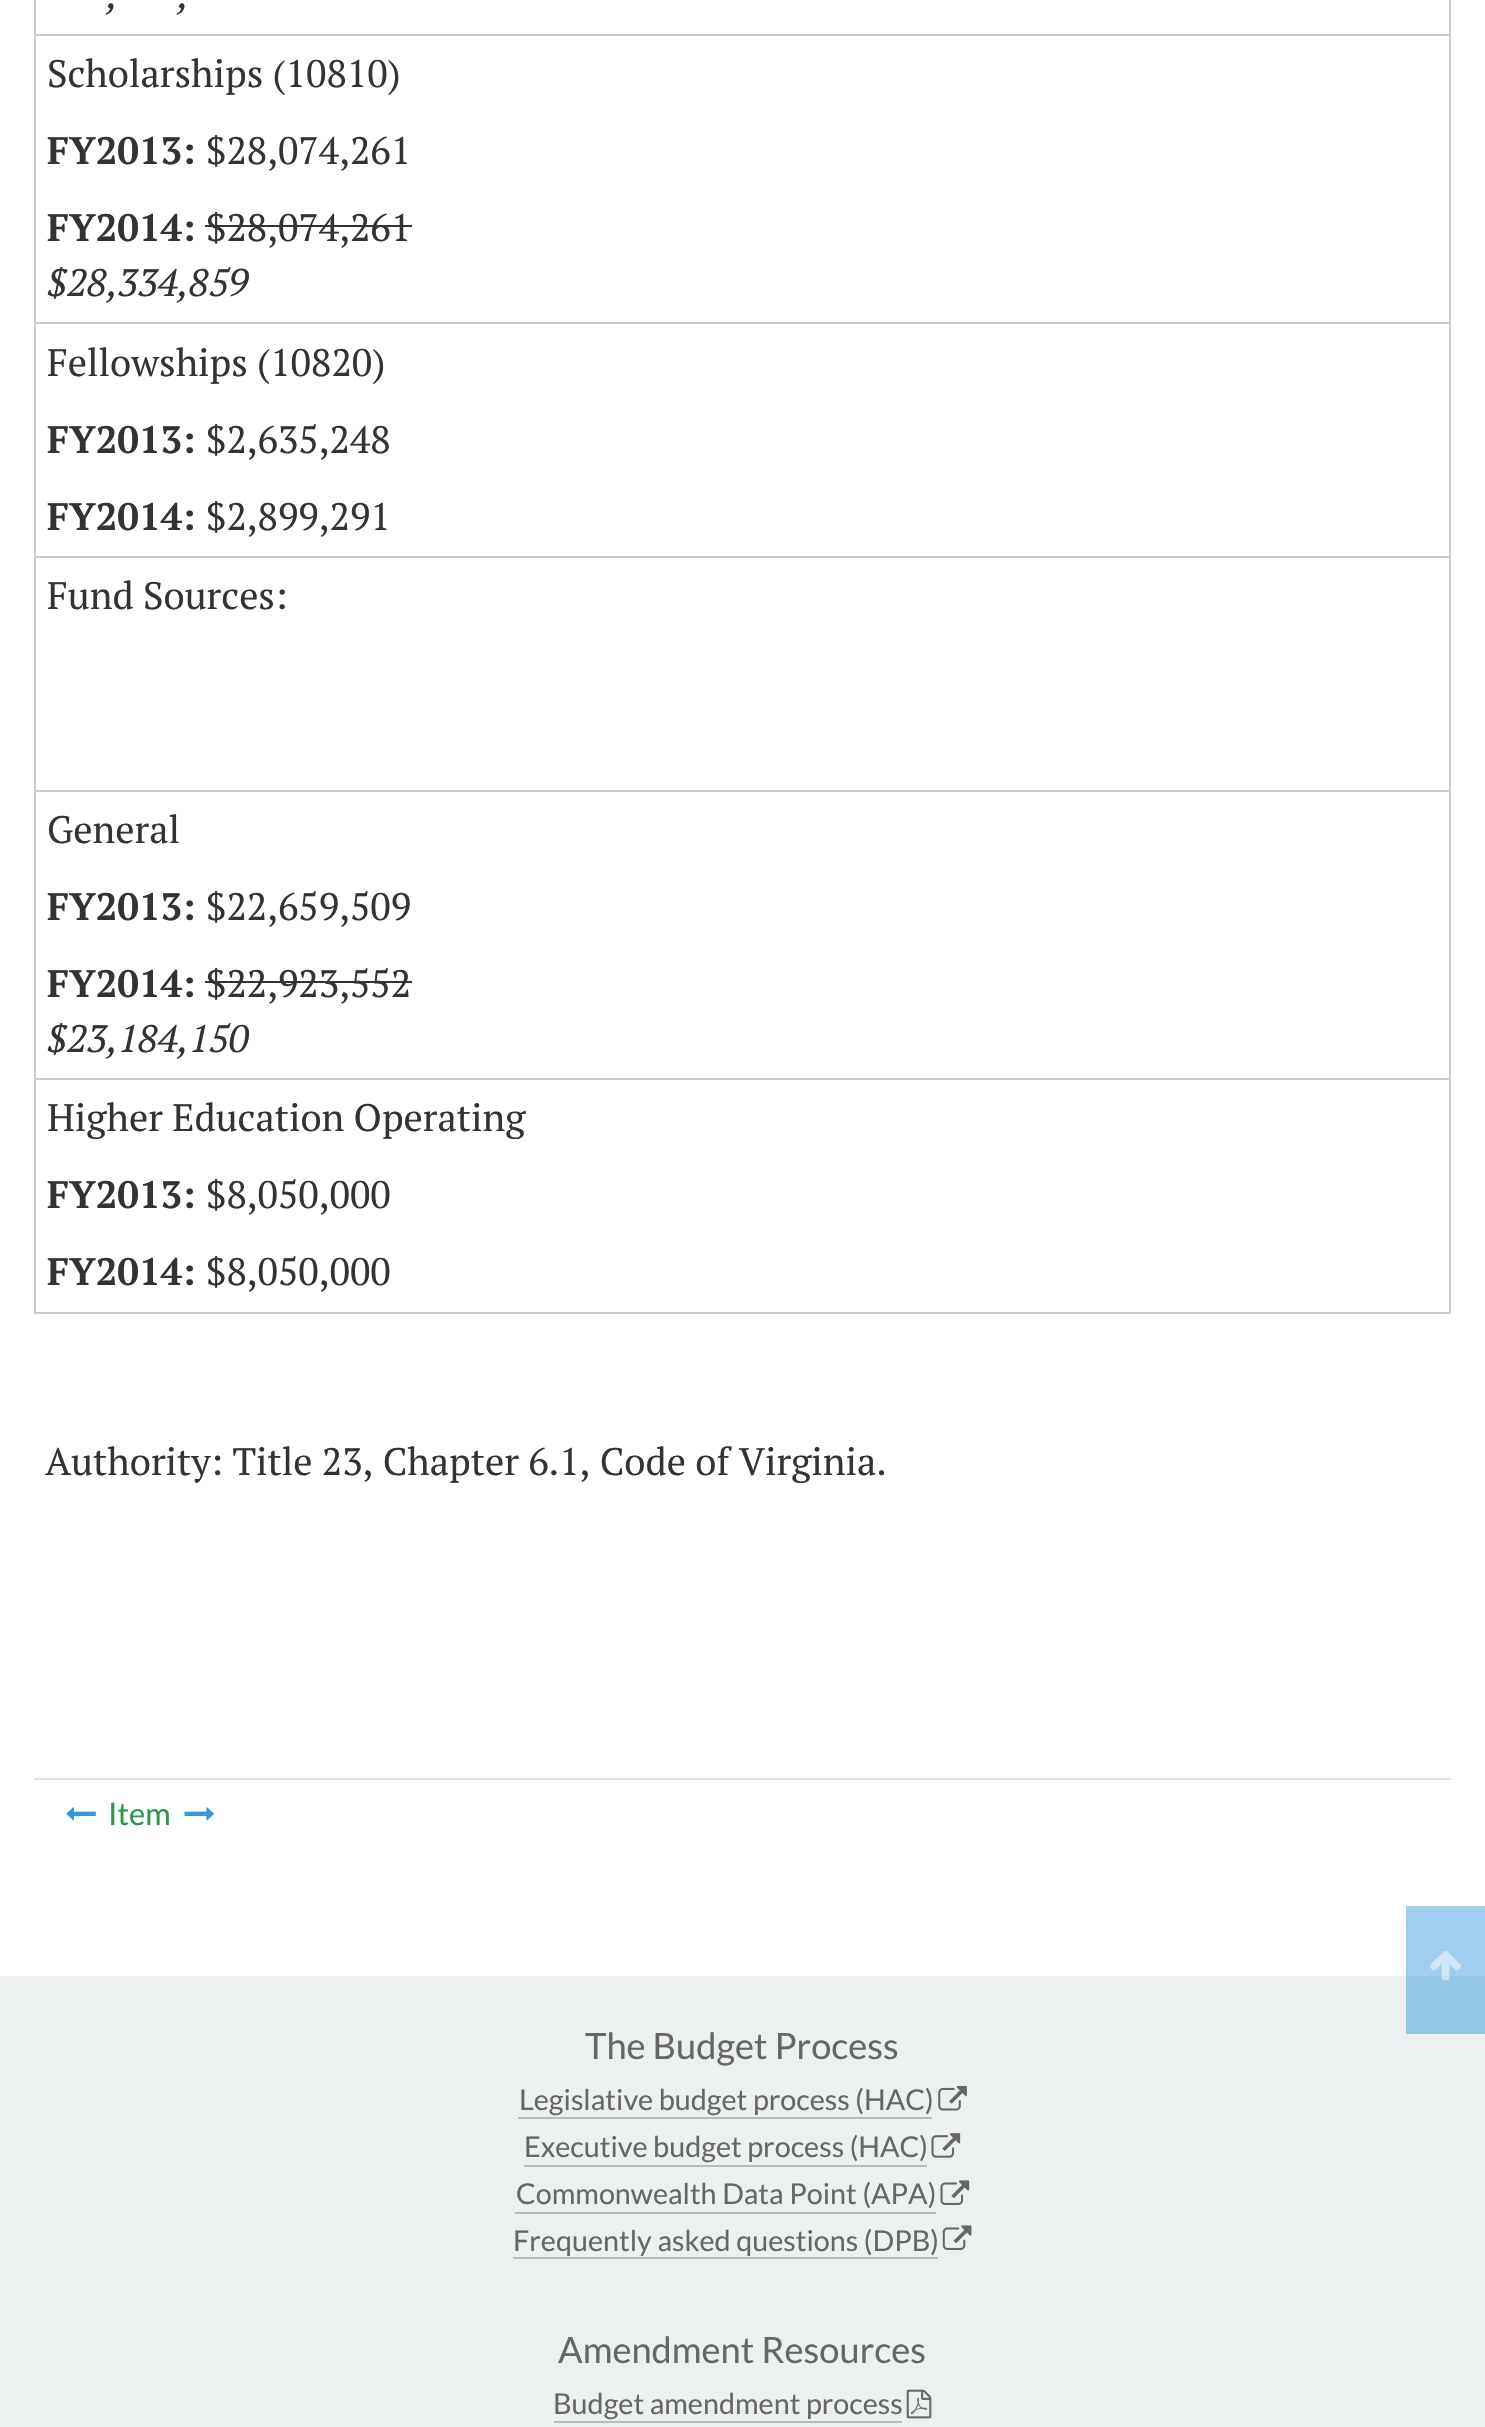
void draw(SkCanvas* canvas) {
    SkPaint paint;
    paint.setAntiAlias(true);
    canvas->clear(0xFFFFFFFF);
    paint.setColor(0xFF9FCEEE);
    canvas->drawRect(SkRect::MakeXYWH(1406, 1906, 79, 70), paint);
    paint.setColor(0xFFCCCCCC);
    canvas->drawRect(SkRect::MakeXYWH(1449, 0, 2, 1314), paint);
    canvas->drawRect(SkRect::MakeXYWH(34, 0, 2, 1314), paint);
    canvas->drawRect(SkRect::MakeXYWH(36, 34, 1413, 2), paint);
    SkFont font1(fontMgr->matchFamilyStyle("PT Serif", SkFontStyle::Italic()), 38.25f);
    font1.setSubpixel(true);
    paint.setColor(0xFF333333);
    canvas->drawString(",", 107, 8, font1, paint);
    canvas->drawString(",", 178, 8, font1, paint);
    paint.setColor(0xFFCCCCCC);
    canvas->drawRect(SkRect::MakeXYWH(36, 322, 1413, 2), paint);
    SkFont font2(fontMgr->matchFamilyStyle("PT Serif", SkFontStyle::Normal()), 38.25f);
    font2.setSubpixel(true);
    paint.setColor(0xFF333333);
    canvas->drawString("Scholarships (10810)", 47, 87, font2, paint);
    SkFont font3(fontMgr->matchFamilyStyle("PT Serif", SkFontStyle::Bold()), 38.25f);
    font3.setSubpixel(true);
    canvas->drawString("FY2013:", 47, 164, font3, paint);
    canvas->drawString("$28,074,261", 206, 164, font2, paint);
    canvas->drawString("FY2014:", 47, 241, font3, paint);
    canvas->drawString("$28,074,261", 206, 241, font2, paint);
    canvas->drawRect(SkRect::MakeXYWH(205, 225, 207, 2), paint);
    canvas->drawString("$28,334,859", 47, 296, font1, paint);
    paint.setColor(0xFFCCCCCC);
    canvas->drawRect(SkRect::MakeXYWH(36, 556, 1413, 2), paint);
    paint.setColor(0xFF333333);
    canvas->drawString("Fellowships (10820)", 47, 376, font2, paint);
    canvas->drawString("FY2013:", 47, 453, font3, paint);
    canvas->drawString("$2,635,248", 206, 453, font2, paint);
    canvas->drawString("FY2014:", 47, 530, font3, paint);
    canvas->drawString("$2,899,291", 206, 530, font2, paint);
    paint.setColor(0xFFCCCCCC);
    canvas->drawRect(SkRect::MakeXYWH(36, 790, 1413, 2), paint);
    paint.setColor(0xFF333333);
    canvas->drawString("Fund Sources:", 47, 609, font2, paint);
    paint.setColor(0xFFCCCCCC);
    canvas->drawRect(SkRect::MakeXYWH(36, 1078, 1413, 2), paint);
    paint.setColor(0xFF333333);
    canvas->drawString("General", 47, 843, font2, paint);
    canvas->drawString("FY2013:", 47, 920, font3, paint);
    canvas->drawString("$22,659,509", 206, 920, font2, paint);
    canvas->drawString("FY2014:", 47, 997, font3, paint);
    canvas->drawString("$22,923,552", 206, 997, font2, paint);
    canvas->drawRect(SkRect::MakeXYWH(205, 981, 207, 2), paint);
    canvas->drawString("$23,184,150", 47, 1052, font1, paint);
    paint.setColor(0xFFCCCCCC);
    canvas->drawRect(SkRect::MakeXYWH(36, 1312, 1413, 2), paint);
    paint.setColor(0xFF333333);
    canvas->drawString("Higher Education Operating", 47, 1131, font2, paint);
    canvas->drawString("FY2013:", 47, 1208, font3, paint);
    canvas->drawString("$8,050,000", 206, 1208, font2, paint);
    canvas->drawString("FY2014:", 47, 1285, font3, paint);
    canvas->drawString("$8,050,000", 206, 1285, font2, paint);
    canvas->drawString("Authority: Title 23, Chapter 6.1, Code of Virginia.", 45, 1475, font2, paint);
    paint.setColor(0xFFDEE2E3);
    canvas->drawRect(SkRect::MakeXYWH(34, 1778, 1417, 2), paint);
    canvas->drawImageRect(SkImages::DeferredFromEncodedData(SkData::MakeFromFileName("img1.png")), SkRect::MakeXYWH(66, 1807, 30, 14), SkSamplingOptions());
    SkFont font4(fontMgr->matchFamilyStyle("Lato", SkFontStyle::Normal()), 31);
    font4.setSubpixel(true);
    paint.setColor(0xFF2E954C);
    canvas->drawString("Item", 108, 1825, font4, paint);
    canvas->drawImageRect(SkImages::DeferredFromEncodedData(SkData::MakeFromFileName("img2.png")), SkRect::MakeXYWH(184, 1807, 30, 14), SkSamplingOptions());
    paint.setColor(0xFFECF0F1);
    canvas->drawRect(SkRect::MakeXYWH(0, 1976, 1485, 451), paint);
    paint.setColor(0xFF95C7E7);
    canvas->drawRect(SkRect::MakeXYWH(1406, 1976, 79, 58), paint);
    canvas->drawImageRect(SkImages::DeferredFromEncodedData(SkData::MakeFromFileName("img3.png")), SkRect::MakeXYWH(1429, 1950, 32, 31), SkSamplingOptions());
    SkFont font5(fontMgr->matchFamilyStyle("Lato", SkFontStyle::Normal()), 36.25f);
    font5.setSubpixel(true);
    paint.setColor(0xFF666666);
    canvas->drawString("The Budget Process", 585, 2059, font5, paint);
    SkFont font6(fontMgr->matchFamilyStyle("Lato", SkFontStyle::Normal()), 28.75f);
    font6.setSubpixel(true);
    canvas->drawString("Legislative budget process (HAC)", 519, 2110, font6, paint);
    paint.setColor(0xFFBBBBBB);
    canvas->drawRect(SkRect::MakeXYWH(518, 2117, 414, 2), paint);
    canvas->drawImageRect(SkImages::DeferredFromEncodedData(SkData::MakeFromFileName("img4.png")), SkRect::MakeXYWH(938, 2085, 29, 26), SkSamplingOptions());
    paint.setColor(0xFF666666);
    canvas->drawString("Executive budget process (HAC)", 524, 2157, font6, paint);
    paint.setColor(0xFFBBBBBB);
    canvas->drawRect(SkRect::MakeXYWH(524, 2165, 403, 2), paint);
    canvas->drawImageRect(SkImages::DeferredFromEncodedData(SkData::MakeFromFileName("img5.png")), SkRect::MakeXYWH(931, 2133, 30, 25), SkSamplingOptions());
    paint.setColor(0xFF666666);
    canvas->drawString("Commonwealth Data Point (APA)", 516, 2204, font6, paint);
    paint.setColor(0xFFBBBBBB);
    canvas->drawRect(SkRect::MakeXYWH(515, 2212, 421, 2), paint);
    canvas->drawImageRect(SkImages::DeferredFromEncodedData(SkData::MakeFromFileName("img6.png")), SkRect::MakeXYWH(940, 2180, 30, 25), SkSamplingOptions());
    paint.setColor(0xFF666666);
    canvas->drawString("Frequently asked questions (DPB)", 513, 2251, font6, paint);
    paint.setColor(0xFFBBBBBB);
    canvas->drawRect(SkRect::MakeXYWH(513, 2257, 425, 2), paint);
    canvas->drawImageRect(SkImages::DeferredFromEncodedData(SkData::MakeFromFileName("img7.png")), SkRect::MakeXYWH(942, 2225, 30, 25), SkSamplingOptions());
    paint.setColor(0xFF666666);
    canvas->drawString("Amendment Resources", 558, 2363, font5, paint);
    canvas->drawString("Budget amendment process", 553, 2414, font6, paint);
    paint.setColor(0xFFBBBBBB);
    canvas->drawRect(SkRect::MakeXYWH(554, 2421, 348, 2), paint);
    canvas->drawImageRect(SkImages::DeferredFromEncodedData(SkData::MakeFromFileName("img8.png")), SkRect::MakeXYWH(906, 2389, 26, 30), SkSamplingOptions());
}
